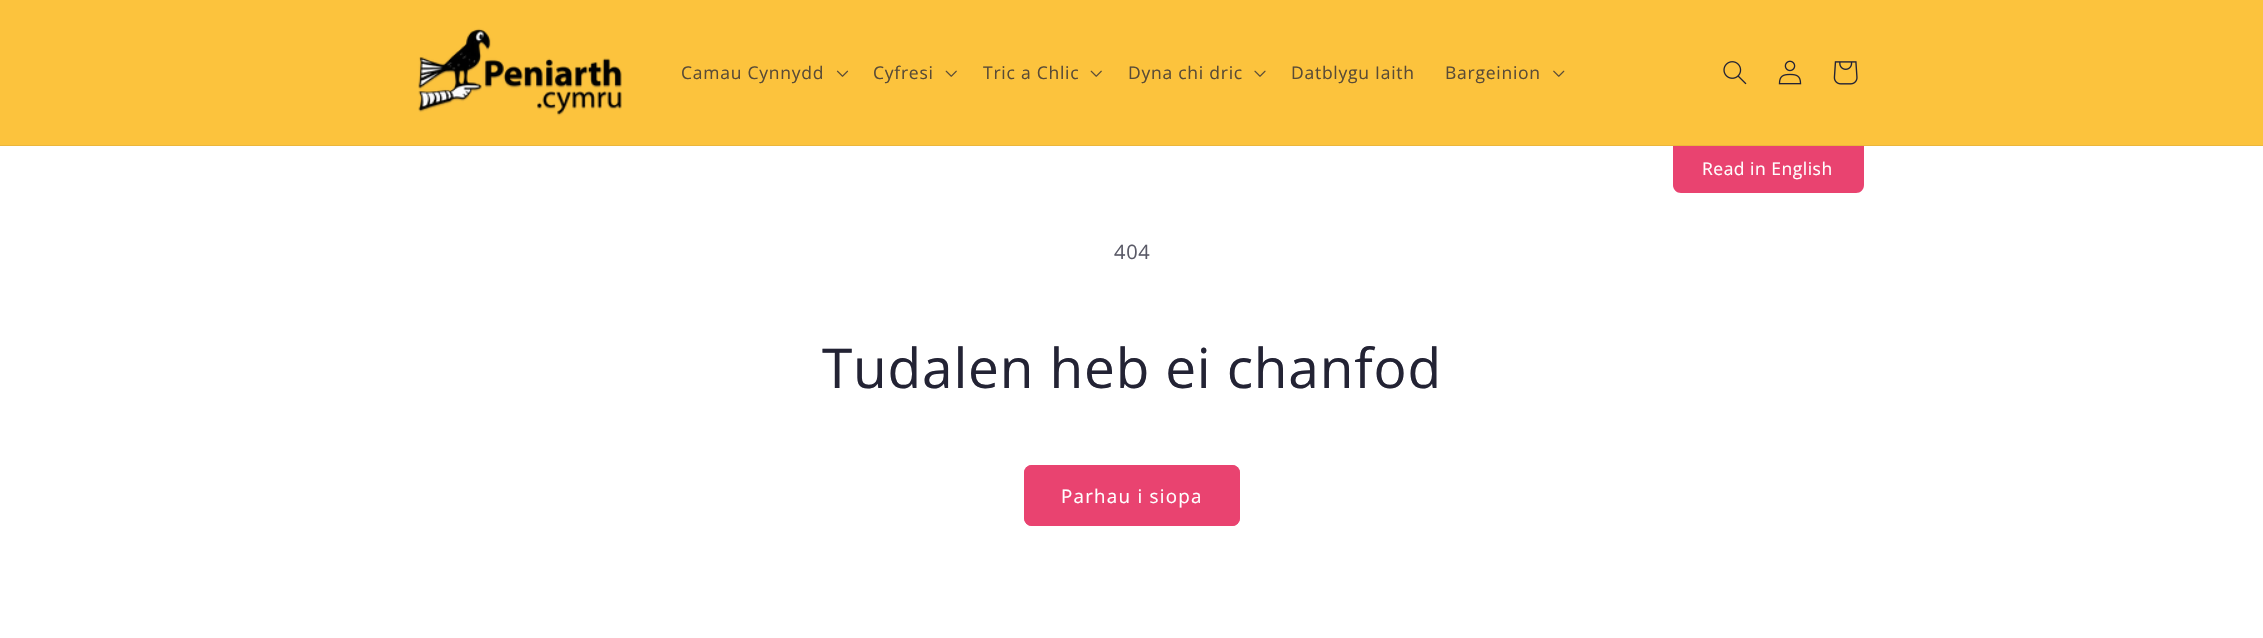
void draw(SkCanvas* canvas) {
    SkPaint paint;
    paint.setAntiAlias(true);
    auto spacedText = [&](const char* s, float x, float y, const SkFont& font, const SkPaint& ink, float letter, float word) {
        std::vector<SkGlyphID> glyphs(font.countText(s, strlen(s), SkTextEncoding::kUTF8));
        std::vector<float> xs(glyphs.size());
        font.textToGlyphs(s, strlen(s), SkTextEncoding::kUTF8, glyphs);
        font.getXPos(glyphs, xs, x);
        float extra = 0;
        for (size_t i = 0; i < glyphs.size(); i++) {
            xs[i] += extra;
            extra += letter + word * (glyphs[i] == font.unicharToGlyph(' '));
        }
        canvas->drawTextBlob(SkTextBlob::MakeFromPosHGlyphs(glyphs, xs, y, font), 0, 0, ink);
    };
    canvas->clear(0xFFFFFFFF);
    paint.setColor(0xFFFCC33D);
    canvas->drawRect(SkRect::MakeXYWH(0, 0, 2263, 145), paint);
    paint.setColor(0xFFEBB63C);
    canvas->drawRect(SkRect::MakeXYWH(0, 145, 2263, 1), paint);
    canvas->drawImageRect(SkImages::DeferredFromEncodedData(SkData::MakeFromFileName("img1.png")), SkRect::MakeXYWH(418, 28, 204, 88), SkSamplingOptions());
    SkFont font1(fontMgr->matchFamilyStyle("Open Sans", SkFontStyle::Normal()), 17.5f);
    font1.setSubpixel(true);
    paint.setColor(0xFF594B36);
    spacedText("Camau Cynnydd", 681, 79, font1, paint, 0.75f, 0);
    canvas->drawImageRect(SkImages::DeferredFromEncodedData(SkData::MakeFromFileName("img2.png")), SkRect::MakeXYWH(836, 70, 13, 7), SkSamplingOptions());
    spacedText("Cyfresi", 873, 79, font1, paint, 0.75f, 0);
    canvas->drawImageRect(SkImages::DeferredFromEncodedData(SkData::MakeFromFileName("img3.png")), SkRect::MakeXYWH(945, 70, 12, 7), SkSamplingOptions());
    spacedText("Tric a Chlic", 983, 79, font1, paint, 0.75f, 0);
    canvas->drawImageRect(SkImages::DeferredFromEncodedData(SkData::MakeFromFileName("img3.png")), SkRect::MakeXYWH(1090, 70, 12, 7), SkSamplingOptions());
    spacedText("Dyna chi dric", 1128, 79, font1, paint, 0.75f, 0);
    canvas->drawImageRect(SkImages::DeferredFromEncodedData(SkData::MakeFromFileName("img4.png")), SkRect::MakeXYWH(1254, 70, 12, 7), SkSamplingOptions());
    spacedText("Datblygu Iaith", 1291, 79, font1, paint, 0.75f, 0);
    spacedText("Bargeinion", 1445, 79, font1, paint, 0.75f, 0);
    canvas->drawImageRect(SkImages::DeferredFromEncodedData(SkData::MakeFromFileName("img5.png")), SkRect::MakeXYWH(1553, 70, 12, 7), SkSamplingOptions());
    canvas->drawImageRect(SkImages::DeferredFromEncodedData(SkData::MakeFromFileName("img6.png")), SkRect::MakeXYWH(1723, 61, 24, 24), SkSamplingOptions());
    canvas->drawImageRect(SkImages::DeferredFromEncodedData(SkData::MakeFromFileName("img7.png")), SkRect::MakeXYWH(1778, 60, 24, 25), SkSamplingOptions());
    canvas->drawImageRect(SkImages::DeferredFromEncodedData(SkData::MakeFromFileName("img8.png")), SkRect::MakeXYWH(1833, 61, 25, 24), SkSamplingOptions());
    paint.setColor(0xFFE94370);
    canvas->drawPath(SkPathBuilder().moveTo(1673, 146).lineTo(1864, 146).lineTo(1864, 185).cubicTo(1864, 189.5f, 1860.5f, 193, 1856, 193).lineTo(1681, 193).cubicTo(1676.5f, 193, 1673, 189.5f, 1673, 185).close().detach(), paint);
    paint.setColor(0xFFFFFFFF);
    spacedText("Read in English", 1702, 175, font1, paint, 0.5f, 0);
    SkFont font2(fontMgr->matchFamilyStyle("Open Sans", SkFontStyle::Normal()), 20);
    font2.setSubpixel(true);
    paint.setColor(0xFF5A5A67);
    spacedText("404", 1114, 259, font2, paint, 0.75f, 0);
    SkFont font3(fontMgr->matchFamilyStyle("Open Sans", SkFontStyle::Normal()), 55);
    font3.setSubpixel(true);
    paint.setColor(0xFF232334);
    spacedText("Tudalen heb ei chanfod", 822, 388, font3, paint, 0.8f, 0);
    paint.setColor(0xFFE94370);
    canvas->drawRoundRect(SkRect::MakeXYWH(1024, 465, 216, 61), 8, 8, paint);
    paint.setStyle(SkPaint::kStroke_Style);
    paint.setStrokeWidth(3);
    canvas->drawRoundRect(SkRect::MakeXYWH(1025.5f, 466.5f, 213, 58), 6.5f, 6.5f, paint);
    SkFont font4(fontMgr->matchFamilyStyle("Open Sans", SkFontStyle::Normal()), 18.75f);
    font4.setSubpixel(true);
    paint.setStyle(SkPaint::kFill_Style);
    paint.setColor(0xFFFFFFFF);
    spacedText("Parhau i siopa", 1061, 503, font4, paint, 1.25f, 0);
}
